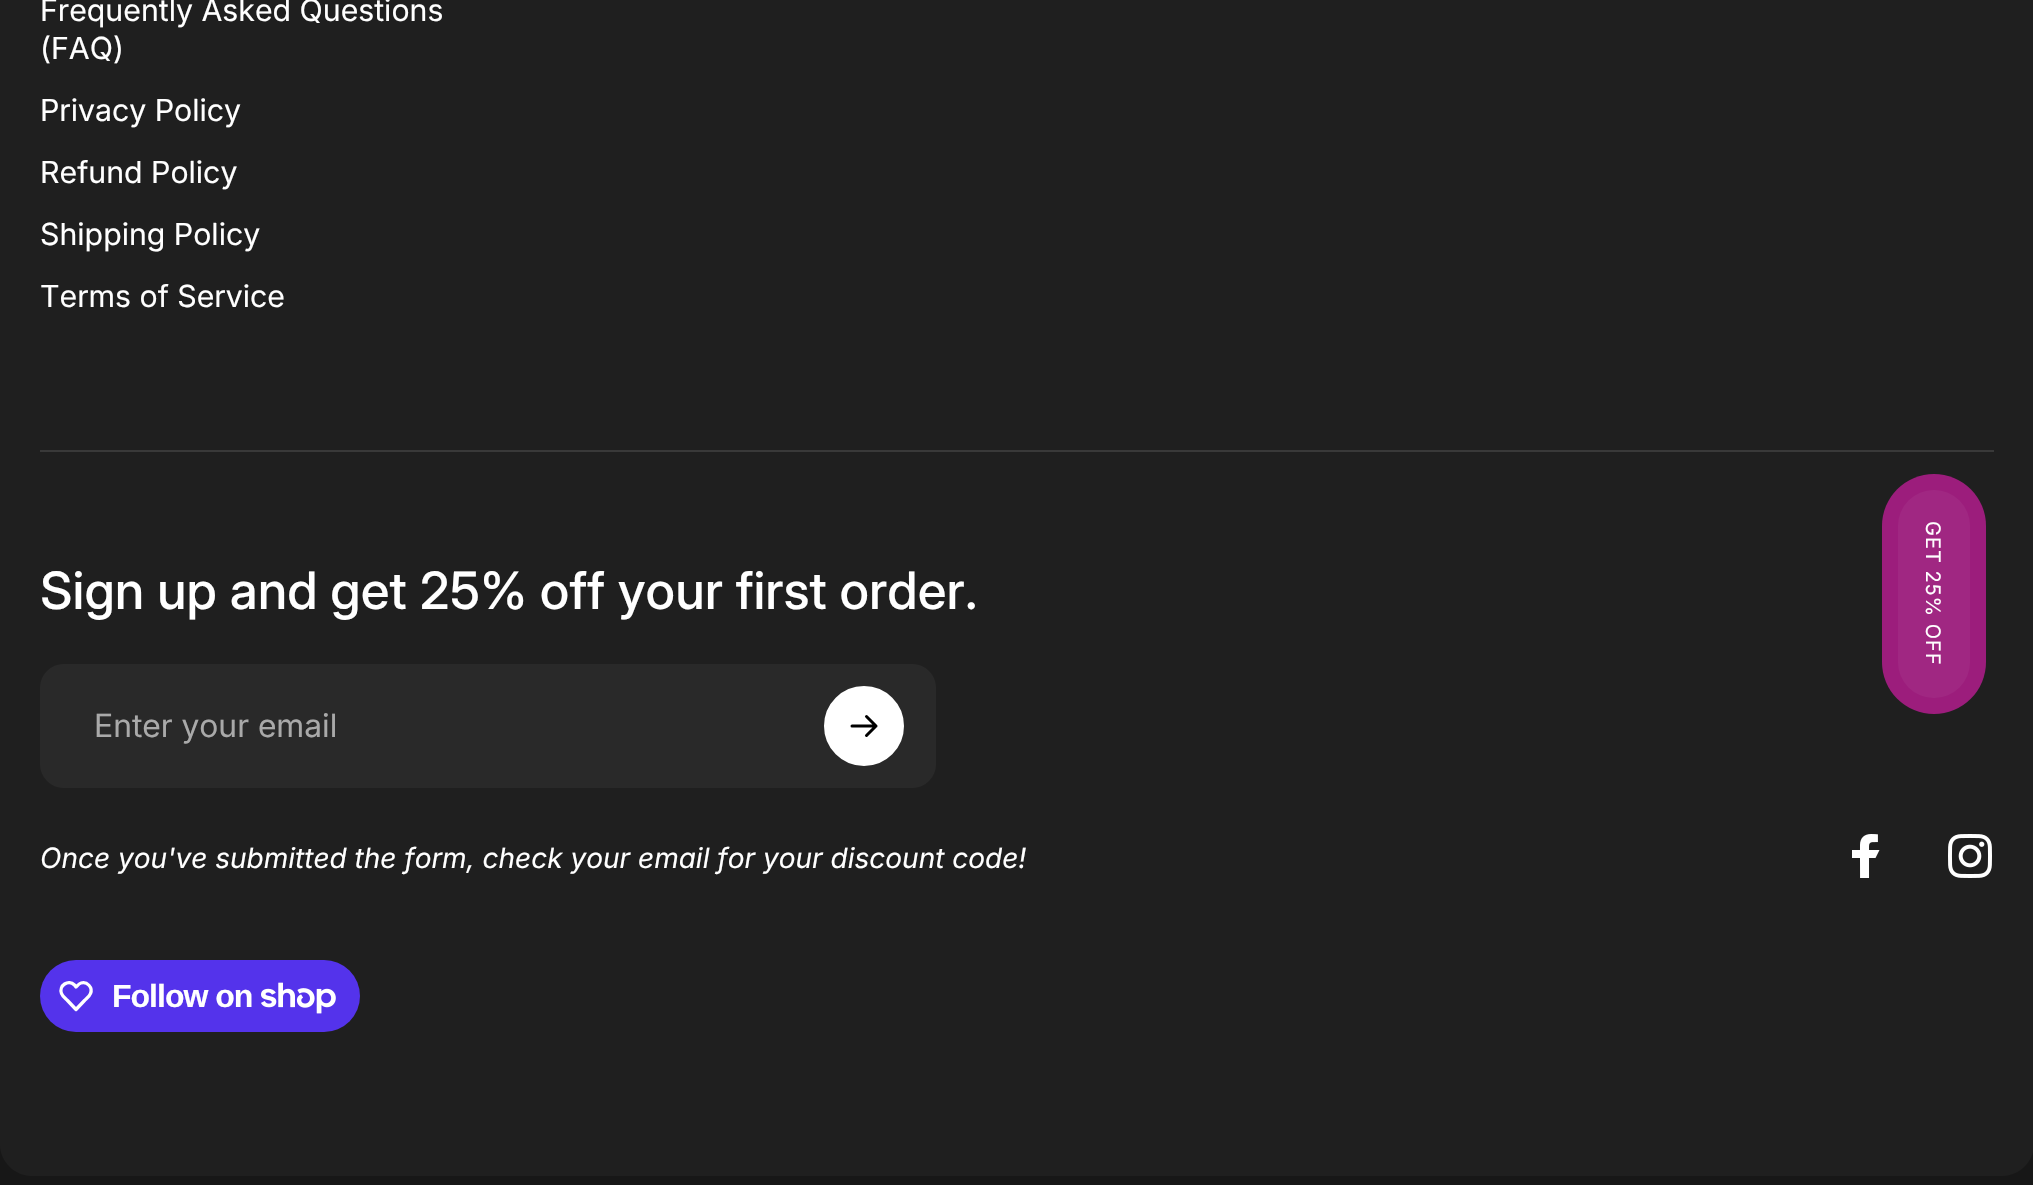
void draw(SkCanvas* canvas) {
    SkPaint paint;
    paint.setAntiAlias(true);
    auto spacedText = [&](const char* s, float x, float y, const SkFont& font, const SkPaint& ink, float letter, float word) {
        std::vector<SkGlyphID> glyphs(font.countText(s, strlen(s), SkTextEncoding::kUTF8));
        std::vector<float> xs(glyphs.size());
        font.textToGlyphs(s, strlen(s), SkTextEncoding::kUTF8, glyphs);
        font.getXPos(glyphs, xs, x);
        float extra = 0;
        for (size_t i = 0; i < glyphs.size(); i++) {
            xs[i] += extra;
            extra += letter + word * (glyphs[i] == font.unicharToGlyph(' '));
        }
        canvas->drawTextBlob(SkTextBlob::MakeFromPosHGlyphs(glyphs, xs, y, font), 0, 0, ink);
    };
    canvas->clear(0xFF171717);
    paint.setColor(0xFF1F1F1F);
    canvas->drawPath(SkPathBuilder().moveTo(0, -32).lineTo(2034, -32).lineTo(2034, 1144).cubicTo(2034, 1161.5f, 2019.5f, 1176, 2002, 1176).lineTo(32, 1176).cubicTo(14.5f, 1176, 0, 1161.5f, 0, 1144).close().detach(), paint);
    SkFont font1(fontMgr->matchFamilyStyle("Inter", SkFontStyle::Normal()), 30.4f);
    font1.setSubpixel(true);
    paint.setColor(0xFFFFFFFF);
    canvas->drawString("Frequently Asked Questions", 40, 21, font1, paint);
    canvas->drawString("(FAQ)", 40, 59, font1, paint);
    canvas->drawString("Privacy Policy", 40, 121, font1, paint);
    canvas->drawString("Refund Policy", 40, 183, font1, paint);
    canvas->drawString("Shipping Policy", 40, 245, font1, paint);
    canvas->drawString("Terms of Service", 40, 307, font1, paint);
    paint.setColor(0xFF393939);
    canvas->drawRect(SkRect::MakeXYWH(40, 450, 1954, 2), paint);
    SkFont font2(fontMgr->matchFamilyStyle("Inter", SkFontStyle(500, SkFontStyle::kNormal_Width, SkFontStyle::kUpright_Slant)), 51.4f);
    font2.setSubpixel(true);
    paint.setColor(0xFFFFFFFF);
    canvas->drawString("Sign up and get 25% off your first order.", 40, 609, font2, paint);
    paint.setColor(0xFF292929);
    canvas->drawRoundRect(SkRect::MakeXYWH(40, 664, 896, 124), 24, 24, paint);
    SkFont font3(fontMgr->matchFamilyStyle("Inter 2", SkFontStyle::Normal()), 32);
    font3.setSubpixel(true);
    paint.setColor(0xFFA9A9A9);
    canvas->drawString("Enter your email", 94, 737, font3, paint);
    paint.setColor(0xFFFFFFFF);
    canvas->drawCircle(864, 726, 38, paint);
    paint.setStyle(SkPaint::kStroke_Style);
    paint.setStrokeWidth(4);
    canvas->drawCircle(864, 726, 38, paint);
    paint.setStrokeWidth(3);
    paint.setStrokeCap(SkPaint::kRound_Cap);
    paint.setStrokeJoin(SkPaint::kRound_Join);
    paint.setColor(0xFF000000);
    canvas->drawPath(SkPathBuilder().moveTo(852, 726).lineTo(876, 726).moveTo(876, 726).lineTo(866.5f, 716.5f).moveTo(876, 726).lineTo(866.5f, 735.5f).detach(), paint);
    SkFont font4(fontMgr->matchFamilyStyle("Inter", SkFontStyle::Italic()), 28);
    font4.setSubpixel(true);
    paint.setStyle(SkPaint::kFill_Style);
    paint.setColor(0xFFFFFFFF);
    canvas->drawString("Once you've submitted the form, check your email for your discount code!", 40, 868, font4, paint);
    canvas->drawImageRect(SkImages::DeferredFromEncodedData(SkData::MakeFromFileName("img1.png")), SkRect::MakeXYWH(1852, 834, 28, 44), SkSamplingOptions());
    canvas->drawImageRect(SkImages::DeferredFromEncodedData(SkData::MakeFromFileName("img2.png")), SkRect::MakeXYWH(1948, 834, 44, 44), SkSamplingOptions());
    paint.setColor(0xFF5433EB);
    canvas->drawRoundRect(SkRect::MakeXYWH(40, 960, 320, 72), 36, 36, paint);
    paint.setStyle(SkPaint::kStroke_Style);
    paint.setStrokeWidth(3.3f);
    paint.setStrokeCap(SkPaint::kButt_Cap);
    paint.setColor(0xFFFFFFFF);
    canvas->drawPath(SkPathBuilder().moveTo(74.5f, 985).lineTo(76, 987).cubicTo(77.5f, 985.5f, 79, 983.5f, 81, 983).cubicTo(87, 981, 93, 987.5f, 90.5f, 993.5f).cubicTo(89.5f, 996.5f, 86.5f, 998.5f, 84.5f, 1000.5f).lineTo(76, 1009.5f).lineTo(67.5f, 1000.5f).cubicTo(65.5f, 998.5f, 62.5f, 996.5f, 61.5f, 993.5f).cubicTo(58.5f, 985.5f, 68.5f, 979, 74.5f, 985).close().detach(), paint);
    SkFont font5(fontMgr->matchFamilyStyle("Liberation Sans", SkFontStyle::Bold()), 32);
    font5.setSubpixel(true);
    paint.setStyle(SkPaint::kFill_Style);
    spacedText("Follow on", 112, 1007, font5, paint, -1, 0);
    canvas->drawImageRect(SkImages::DeferredFromEncodedData(SkData::MakeFromFileName("img3.png")), SkRect::MakeXYWH(261, 982, 75, 32), SkSamplingOptions());
    paint.setColor(0xFF9C1D7C);
    canvas->drawRoundRect(SkRect::MakeXYWH(1882, 474, 104, 240), 52, 52, paint);
    paint.setColor(0xFFA02782);
    canvas->drawRoundRect(SkRect::MakeXYWH(1898, 490, 72, 208), 36, 36, paint);
    SkFont font6(fontMgr->matchFamilyStyle("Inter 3", SkFontStyle::Normal()), 20);
    font6.setSubpixel(true);
    paint.setColor(0xFFFFFFFF);
    canvas->save();
    canvas->rotate(90, 1926, 521);
    spacedText("GET 25% OFF", 1926, 521, font6, paint, 1, 0);
    canvas->restore();
}
